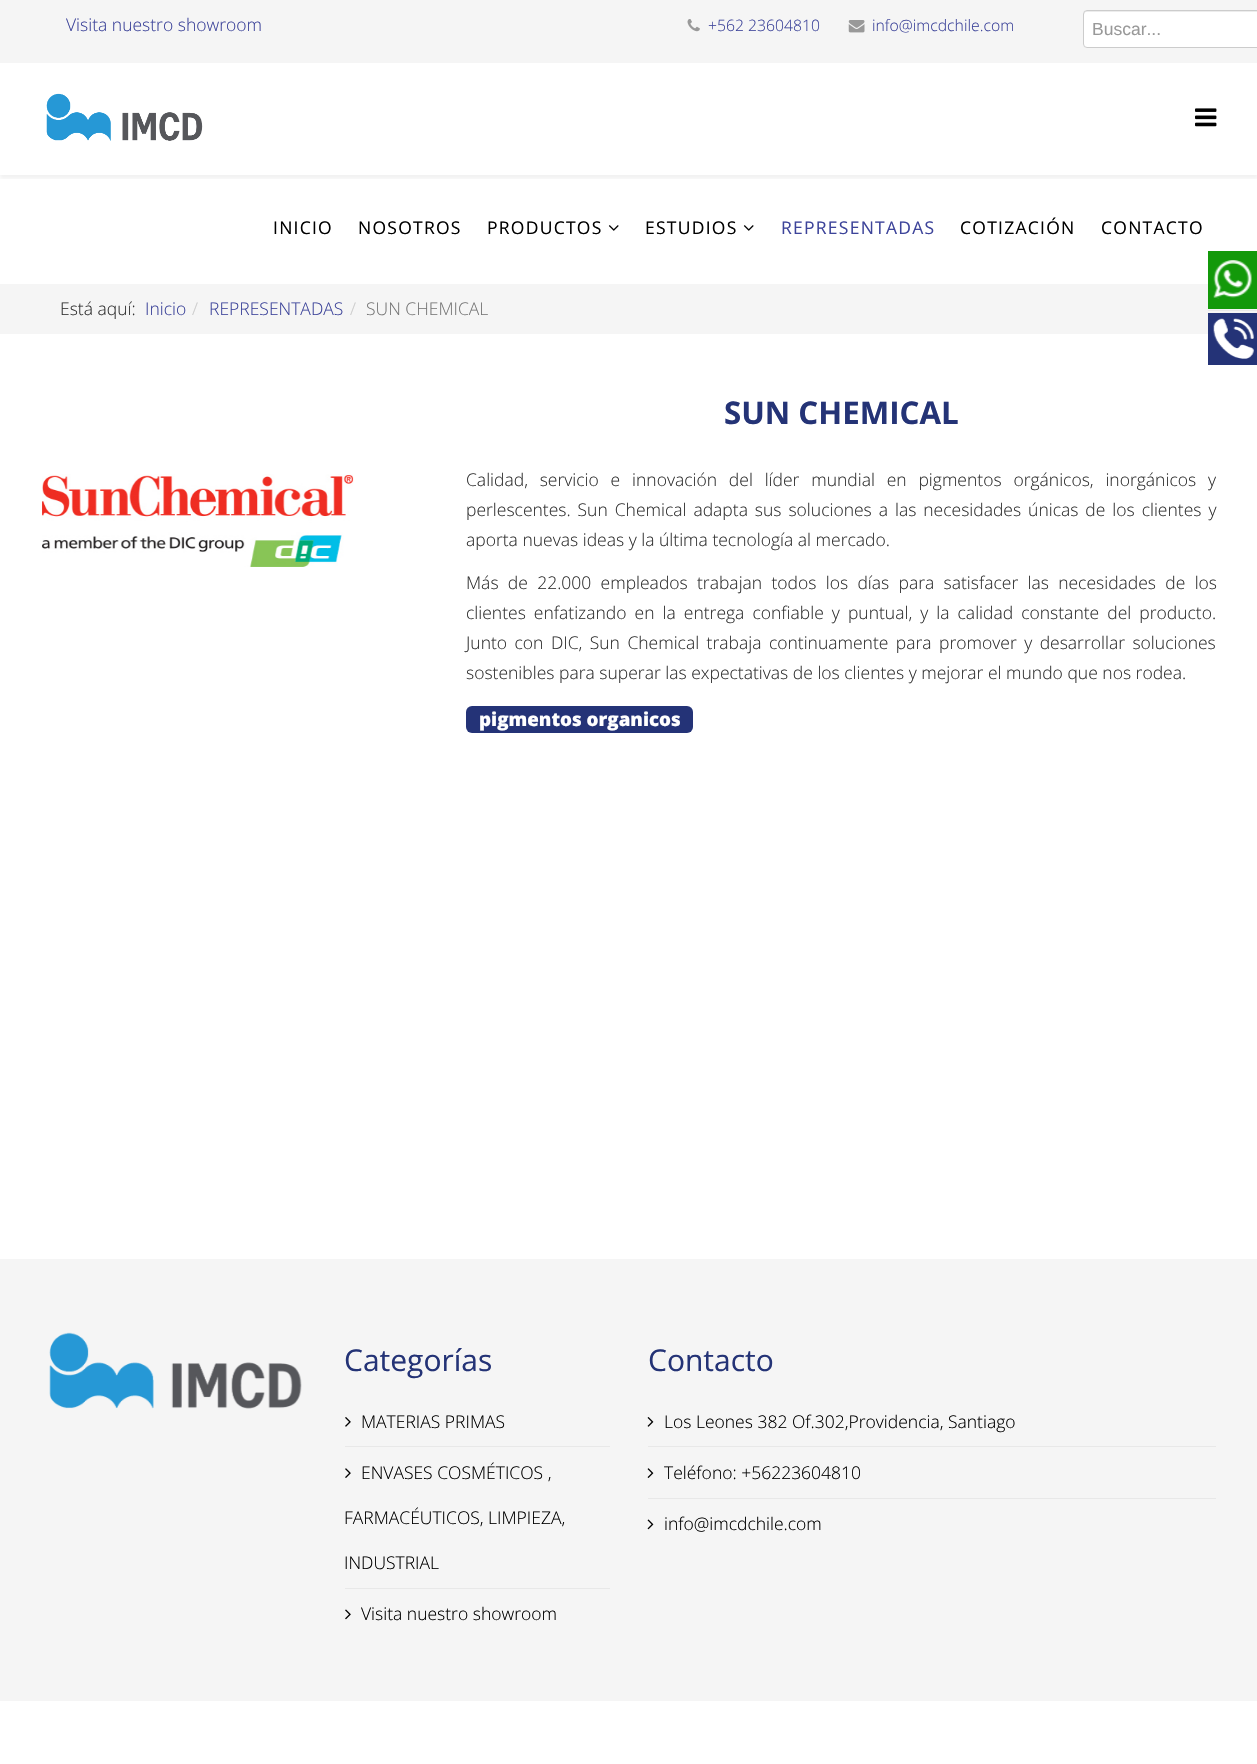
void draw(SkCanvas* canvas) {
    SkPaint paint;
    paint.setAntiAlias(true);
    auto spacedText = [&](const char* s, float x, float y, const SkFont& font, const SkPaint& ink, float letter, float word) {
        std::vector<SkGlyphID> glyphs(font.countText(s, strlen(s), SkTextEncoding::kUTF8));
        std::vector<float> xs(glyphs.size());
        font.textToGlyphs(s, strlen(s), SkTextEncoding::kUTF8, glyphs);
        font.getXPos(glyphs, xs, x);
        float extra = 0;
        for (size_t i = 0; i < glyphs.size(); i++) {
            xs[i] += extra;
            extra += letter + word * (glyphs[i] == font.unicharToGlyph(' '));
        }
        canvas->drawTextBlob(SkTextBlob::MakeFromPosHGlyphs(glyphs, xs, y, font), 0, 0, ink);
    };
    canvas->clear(0xFFFFFFFF);
    paint.setColor(0xFFF5F5F5);
    canvas->drawRect(SkRect::MakeXYWH(0, 0, 1257, 63), paint);
    SkFont font1(fontMgr->matchFamilyStyle("Open Sans", SkFontStyle(300, SkFontStyle::kNormal_Width, SkFontStyle::kUpright_Slant)), 17.5f);
    font1.setSubpixel(true);
    paint.setColor(0xFF3D449A);
    canvas->drawString("Visita nuestro showroom", 66, 31, font1, paint);
    canvas->drawImageRect(SkImages::DeferredFromEncodedData(SkData::MakeFromFileName("img1.png")), SkRect::MakeXYWH(687, 19, 13, 13), SkSamplingOptions());
    SkFont font2(fontMgr->matchFamilyStyle("Open Sans", SkFontStyle(300, SkFontStyle::kNormal_Width, SkFontStyle::kUpright_Slant)), 15.75f);
    font2.setSubpixel(true);
    canvas->drawString("+562 23604810", 708, 31, font2, paint);
    canvas->drawImageRect(SkImages::DeferredFromEncodedData(SkData::MakeFromFileName("img2.png")), SkRect::MakeXYWH(848, 20, 17, 13), SkSamplingOptions());
    canvas->drawString("info@imcdchile.com", 872, 31, font2, paint);
    paint.setColor(0xFFFFFFFF);
    canvas->drawPath(SkPathBuilder().moveTo(1087, 10).lineTo(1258, 10).lineTo(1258, 48).lineTo(1087, 48).cubicTo(1085, 48, 1083, 46, 1083, 44).lineTo(1083, 14).cubicTo(1083, 12, 1085, 10, 1087, 10).close().detach(), paint);
    paint.setColor(0xFFECECEC);
    canvas->drawPath(SkPathBuilder().moveTo(1086, 12).lineTo(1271, 12).cubicTo(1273, 12, 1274, 14, 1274, 15).cubicTo(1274, 13, 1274, 11, 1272, 11).lineTo(1086, 11).cubicTo(1084, 11, 1084, 13, 1084, 15).cubicTo(1084, 14, 1085, 12, 1086, 12).close().detach(), paint);
    paint.setStyle(SkPaint::kStroke_Style);
    paint.setStrokeWidth(1);
    paint.setColor(0xFFCCCCCC);
    canvas->drawRoundRect(SkRect::MakeXYWH(1083.5f, 10.5f, 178, 37), 3.5f, 3.5f, paint);
    SkFont font3(fontMgr->matchFamilyStyle("Liberation Sans", SkFontStyle::Normal()), 17.5f);
    font3.setSubpixel(true);
    paint.setStyle(SkPaint::kFill_Style);
    paint.setColor(0xFF999999);
    canvas->drawString("Buscar...", 1092, 35, font3, paint);
    canvas->save();
    canvas->clipRect(SkRect::MakeXYWH(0, 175, 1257, 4));
    paint.setColor(0x0D000000);
    paint.setMaskFilter(SkMaskFilter::MakeBlur(kNormal_SkBlurStyle, 2));
    canvas->drawRect(SkRect::MakeXYWH(0, 66, 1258, 113), paint);
    paint.setMaskFilter(nullptr);
    canvas->restore();
    canvas->drawImageRect(SkImages::DeferredFromEncodedData(SkData::MakeFromFileName("img3.png")), SkRect::MakeXYWH(46, 93, 157, 48), SkSamplingOptions());
    canvas->drawImageRect(SkImages::DeferredFromEncodedData(SkData::MakeFromFileName("img4.png")), SkRect::MakeXYWH(1195, 108, 22, 19), SkSamplingOptions());
    SkFont font4(fontMgr->matchFamilyStyle("Open Sans", SkFontStyle::Normal()), 17.5f);
    font4.setSubpixel(true);
    paint.setColor(0xFF000000);
    spacedText("INICIO", 273, 234, font4, paint, 1.25f, 0);
    spacedText("NOSOTROS", 358, 234, font4, paint, 1.25f, 0);
    spacedText("PRODUCTOS", 487, 234, font4, paint, 1.25f, 0);
    canvas->drawImageRect(SkImages::DeferredFromEncodedData(SkData::MakeFromFileName("img5.png")), SkRect::MakeXYWH(608, 225, 11, 6), SkSamplingOptions());
    spacedText("ESTUDIOS", 645, 234, font4, paint, 1.25f, 0);
    canvas->drawImageRect(SkImages::DeferredFromEncodedData(SkData::MakeFromFileName("img5.png")), SkRect::MakeXYWH(743, 225, 11, 6), SkSamplingOptions());
    paint.setColor(0xFF3D449A);
    spacedText("REPRESENTADAS", 781, 234, font4, paint, 1.25f, 0);
    paint.setColor(0xFF000000);
    spacedText("COTIZACIÓN", 960, 234, font4, paint, 1.25f, 0);
    spacedText("CONTACTO", 1101, 234, font4, paint, 1.25f, 0);
    paint.setColor(0xFFF5F5F5);
    canvas->drawRect(SkRect::MakeXYWH(0, 284, 1257, 50), paint);
    paint.setColor(0xFF333333);
    canvas->drawString("Está aquí:", 60, 315, font1, paint);
    paint.setColor(0xFF3D449A);
    canvas->drawString("Inicio", 145, 315, font1, paint);
    paint.setColor(0xFFCCCCCC);
    canvas->drawString("/", 192, 315, font1, paint);
    paint.setColor(0xFF3D449A);
    canvas->drawString("REPRESENTADAS", 209, 315, font1, paint);
    paint.setColor(0xFFCCCCCC);
    canvas->drawString("/", 350, 315, font1, paint);
    paint.setColor(0xFF777777);
    canvas->drawString("SUN CHEMICAL", 366, 315, font1, paint);
    paint.setColor(0xFFE8E8E8);
    canvas->drawRect(SkRect::MakeXYWH(1208, 310, 49, 1), paint);
    paint.setColor(0xFF13990A);
    canvas->drawRect(SkRect::MakeXYWH(1208, 251, 49, 58), paint);
    canvas->drawImageRect(SkImages::DeferredFromEncodedData(SkData::MakeFromFileName("img6.png")), SkRect::MakeXYWH(1213, 260, 39, 39), SkSamplingOptions());
    paint.setColor(0xFF243377);
    canvas->drawRect(SkRect::MakeXYWH(1208, 313, 49, 52), paint);
    canvas->drawImageRect(SkImages::DeferredFromEncodedData(SkData::MakeFromFileName("img7.png")), SkRect::MakeXYWH(1213, 318, 41, 41), SkSamplingOptions());
    SkFont font5(fontMgr->matchFamilyStyle("Open Sans", SkFontStyle::Bold()), 31.25f);
    font5.setSubpixel(true);
    paint.setColor(0xFF243376);
    canvas->drawString("SUN CHEMICAL", 724, 424, font5, paint);
    canvas->drawImageRect(SkImages::DeferredFromEncodedData(SkData::MakeFromFileName("img8.png")), SkRect::MakeXYWH(42, 474, 312, 93), SkSamplingOptions());
    paint.setColor(0xFF333333);
    spacedText("Calidad, servicio e innovación del líder mundial en pigmentos orgánicos, inorgánicos y", 466, 486, font1, paint, 0, 7.25f);
    spacedText("perlescentes. Sun Chemical adapta sus soluciones a las necesidades únicas de los clientes y", 466, 516, font1, paint, 0, 2.4f);
    canvas->drawString("aporta nuevas ideas y la última tecnología al mercado.", 466, 546, font1, paint);
    spacedText("Más de 22.000 empleados trabajan todos los días para satisfacer las necesidades de los", 466, 589, font1, paint, 0, 4.75f);
    spacedText("clientes enfatizando en la entrega confiable y puntual, y la calidad constante del producto.", 466, 619, font1, paint, 0, 3.5f);
    spacedText("Junto con DIC, Sun Chemical trabaja continuamente para promover y desarrollar soluciones", 466, 649, font1, paint, 0, 2.9f);
    canvas->drawString("sostenibles para superar las expectativas de los clientes y mejorar el mundo que nos rodea.", 466, 679, font1, paint);
    paint.setColor(0xFF243377);
    canvas->drawRoundRect(SkRect::MakeXYWH(466, 706, 227, 27), 6, 6, paint);
    SkFont font6(fontMgr->matchFamilyStyle("Open Sans", SkFontStyle(800, SkFontStyle::kNormal_Width, SkFontStyle::kUpright_Slant)), 18.75f);
    font6.setSubpixel(true);
    paint.setColor(0xFFFFFFFF);
    canvas->drawString("pigmentos organicos", 479, 726, font6, paint);
    paint.setColor(0xFFF5F5F5);
    canvas->drawRect(SkRect::MakeXYWH(0, 1259, 1257, 442), paint);
    canvas->drawImageRect(SkImages::DeferredFromEncodedData(SkData::MakeFromFileName("img9.png")), SkRect::MakeXYWH(49, 1332, 253, 77), SkSamplingOptions());
    SkFont font7(fontMgr->matchFamilyStyle("Open Sans", SkFontStyle::Normal()), 30);
    font7.setSubpixel(true);
    paint.setColor(0xFF243376);
    canvas->drawString("Categorías", 344, 1371, font7, paint);
    paint.setColor(0xFFE8E8E8);
    canvas->drawRect(SkRect::MakeXYWH(345, 1446, 265, 1), paint);
    canvas->drawImageRect(SkImages::DeferredFromEncodedData(SkData::MakeFromFileName("img10.png")), SkRect::MakeXYWH(345, 1417, 6, 10), SkSamplingOptions());
    paint.setColor(0xFF000000);
    canvas->drawString("MATERIAS PRIMAS", 361, 1428, font1, paint);
    paint.setColor(0xFFE8E8E8);
    canvas->drawRect(SkRect::MakeXYWH(345, 1588, 265, 1), paint);
    canvas->drawImageRect(SkImages::DeferredFromEncodedData(SkData::MakeFromFileName("img11.png")), SkRect::MakeXYWH(345, 1468, 6, 10), SkSamplingOptions());
    paint.setColor(0xFF000000);
    canvas->drawString("ENVASES COSMÉTICOS ,", 361, 1479, font1, paint);
    canvas->drawString("FARMACÉUTICOS, LIMPIEZA,", 344, 1524, font1, paint);
    canvas->drawString("INDUSTRIAL", 344, 1569, font1, paint);
    canvas->drawImageRect(SkImages::DeferredFromEncodedData(SkData::MakeFromFileName("img12.png")), SkRect::MakeXYWH(345, 1609, 6, 11), SkSamplingOptions());
    canvas->drawString("Visita nuestro showroom", 361, 1620, font1, paint);
    paint.setColor(0xFF243376);
    canvas->drawString("Contacto", 648, 1371, font7, paint);
    paint.setColor(0xFFE8E8E8);
    canvas->drawRect(SkRect::MakeXYWH(648, 1446, 568, 1), paint);
    canvas->drawImageRect(SkImages::DeferredFromEncodedData(SkData::MakeFromFileName("img13.png")), SkRect::MakeXYWH(647, 1417, 7, 10), SkSamplingOptions());
    paint.setColor(0xFF000000);
    canvas->drawString("Los Leones 382 Of.302,Providencia, Santiago", 664, 1428, font1, paint);
    paint.setColor(0xFFE8E8E8);
    canvas->drawRect(SkRect::MakeXYWH(648, 1498, 568, 1), paint);
    canvas->drawImageRect(SkImages::DeferredFromEncodedData(SkData::MakeFromFileName("img14.png")), SkRect::MakeXYWH(647, 1468, 7, 10), SkSamplingOptions());
    paint.setColor(0xFF000000);
    canvas->drawString("Teléfono: +56223604810", 664, 1479, font1, paint);
    canvas->drawImageRect(SkImages::DeferredFromEncodedData(SkData::MakeFromFileName("img15.png")), SkRect::MakeXYWH(647, 1519, 7, 11), SkSamplingOptions());
    canvas->drawString("info@imcdchile.com", 664, 1530, font1, paint);
}
